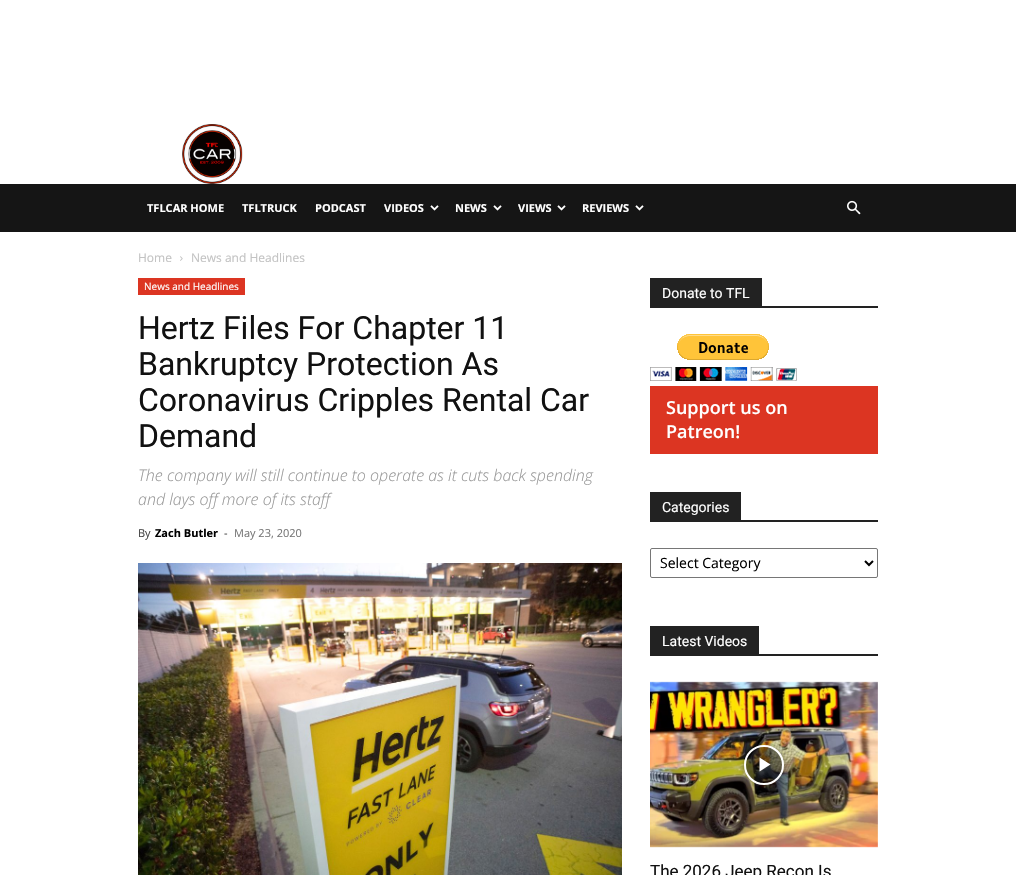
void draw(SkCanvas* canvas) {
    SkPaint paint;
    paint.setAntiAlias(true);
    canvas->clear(0xFFFFFFFF);
    canvas->drawImageRect(SkImages::DeferredFromEncodedData(SkData::MakeFromFileName("img1.png")), SkRect::MakeXYWH(182, 124, 61, 60), SkSamplingOptions());
    paint.setColor(0xFF151515);
    canvas->drawRect(SkRect::MakeXYWH(0, 184, 1016, 48), paint);
    SkFont font1(fontMgr->matchFamilyStyle("Open Sans", SkFontStyle::Bold()), 11);
    font1.setSubpixel(true);
    paint.setColor(0xFFFFFFFF);
    canvas->drawString("TFLCAR HOME", 147, 212, font1, paint);
    canvas->drawString("TFLTRUCK", 242, 212, font1, paint);
    canvas->drawString("PODCAST", 315, 212, font1, paint);
    canvas->drawString("VIDEOS", 384, 212, font1, paint);
    canvas->drawImageRect(SkImages::DeferredFromEncodedData(SkData::MakeFromFileName("img2.png")), SkRect::MakeXYWH(430, 205, 9, 6), SkSamplingOptions());
    canvas->drawString("NEWS", 455, 212, font1, paint);
    canvas->drawImageRect(SkImages::DeferredFromEncodedData(SkData::MakeFromFileName("img2.png")), SkRect::MakeXYWH(493, 205, 9, 6), SkSamplingOptions());
    canvas->drawString("VIEWS", 518, 212, font1, paint);
    canvas->drawImageRect(SkImages::DeferredFromEncodedData(SkData::MakeFromFileName("img2.png")), SkRect::MakeXYWH(557, 205, 9, 6), SkSamplingOptions());
    canvas->drawString("REVIEWS", 582, 212, font1, paint);
    canvas->drawImageRect(SkImages::DeferredFromEncodedData(SkData::MakeFromFileName("img2.png")), SkRect::MakeXYWH(635, 205, 9, 6), SkSamplingOptions());
    canvas->drawImageRect(SkImages::DeferredFromEncodedData(SkData::MakeFromFileName("img3.png")), SkRect::MakeXYWH(847, 200, 14, 15), SkSamplingOptions());
    SkFont font2(fontMgr->matchFamilyStyle("Open Sans", SkFontStyle::Normal()), 12);
    font2.setSubpixel(true);
    paint.setColor(0xFFC3C3C3);
    canvas->drawString("Home", 138, 262, font2, paint);
    canvas->drawImageRect(SkImages::DeferredFromEncodedData(SkData::MakeFromFileName("img4.png")), SkRect::MakeXYWH(180, 256, 3, 5), SkSamplingOptions());
    canvas->drawString("News and Headlines", 191, 262, font2, paint);
    paint.setColor(0xFFDC3522);
    canvas->drawRect(SkRect::MakeXYWH(138, 278, 107, 17), paint);
    SkFont font3(fontMgr->matchFamilyStyle("Open Sans", SkFontStyle::Normal()), 10);
    font3.setSubpixel(true);
    paint.setColor(0xFFFFFFFF);
    canvas->drawString("News and Headlines", 144, 290, font3, paint);
    SkFont font4(fontMgr->matchFamilyStyle("Roboto", SkFontStyle::Normal()), 32);
    font4.setSubpixel(true);
    paint.setColor(0xFF111111);
    canvas->drawString("Hertz Files For Chapter 11", 138, 339, font4, paint);
    canvas->drawString("Bankruptcy Protection As", 138, 375, font4, paint);
    canvas->drawString("Coronavirus Cripples Rental Car", 138, 411, font4, paint);
    canvas->drawString("Demand", 138, 447, font4, paint);
    SkFont font5(fontMgr->matchFamilyStyle("Open Sans", SkFontStyle(300, SkFontStyle::kNormal_Width, SkFontStyle::kItalic_Slant)), 16);
    font5.setSubpixel(true);
    paint.setColor(0xFF999999);
    canvas->drawString("The company will still continue to operate as it cuts back spending", 138, 481, font5, paint);
    canvas->drawString("and lays off more of its staff", 138, 505, font5, paint);
    SkFont font6(fontMgr->matchFamilyStyle("Open Sans", SkFontStyle::Normal()), 11);
    font6.setSubpixel(true);
    paint.setColor(0xFF444444);
    canvas->drawString("By", 138, 537, font6, paint);
    paint.setColor(0xFF000000);
    canvas->drawString("Zach Butler", 155, 537, font1, paint);
    paint.setColor(0xFF444444);
    canvas->drawString("-", 224, 537, font6, paint);
    paint.setColor(0xFF767676);
    canvas->drawString("May 23, 2020", 234, 537, font6, paint);
    canvas->drawImageRect(SkImages::DeferredFromEncodedData(SkData::MakeFromFileName("img5.png")), SkRect::MakeXYWH(138, 563, 484, 312), SkSamplingOptions());
    paint.setColor(0xFF222222);
    canvas->drawRect(SkRect::MakeXYWH(650, 306, 228, 2), paint);
    canvas->drawRect(SkRect::MakeXYWH(650, 278, 112, 28), paint);
    SkFont font7(fontMgr->matchFamilyStyle("Roboto", SkFontStyle::Normal()), 14);
    font7.setSubpixel(true);
    paint.setColor(0xFFFFFFFF);
    canvas->drawString("Donate to TFL", 662, 298, font7, paint);
    canvas->drawImageRect(SkImages::DeferredFromEncodedData(SkData::MakeFromFileName("img6.png")), SkRect::MakeXYWH(650, 334, 147, 47), SkSamplingOptions());
    paint.setColor(0xFFDC3522);
    canvas->drawRect(SkRect::MakeXYWH(650, 386, 228, 68), paint);
    SkFont font8(fontMgr->matchFamilyStyle("Open Sans", SkFontStyle(600, SkFontStyle::kNormal_Width, SkFontStyle::kUpright_Slant)), 18);
    font8.setSubpixel(true);
    paint.setColor(0xFFFFFFFF);
    canvas->drawString("Support us on", 666, 414, font8, paint);
    canvas->drawString("Patreon!", 666, 438, font8, paint);
    paint.setColor(0xFF222222);
    canvas->drawRect(SkRect::MakeXYWH(650, 520, 228, 2), paint);
    canvas->drawRect(SkRect::MakeXYWH(650, 492, 91, 28), paint);
    paint.setColor(0xFFFFFFFF);
    canvas->drawString("Categories", 662, 512, font7, paint);
    paint.setStyle(SkPaint::kStroke_Style);
    paint.setStrokeWidth(1);
    paint.setColor(0xFF767676);
    canvas->drawRoundRect(SkRect::MakeXYWH(650.5f, 548.5f, 227, 29), 1.5f, 1.5f, paint);
    paint.setStrokeWidth(2);
    paint.setColor(0xFF000000);
    canvas->drawPath(SkPathBuilder().moveTo(865, 561).lineTo(869, 565).lineTo(873, 561).detach(), paint);
    SkFont font9(fontMgr->matchFamilyStyle("Open Sans", SkFontStyle::Normal()), 14);
    font9.setSubpixel(true);
    paint.setStyle(SkPaint::kFill_Style);
    canvas->drawString("Select Category", 660, 568, font9, paint);
    paint.setColor(0xFF222222);
    canvas->drawRect(SkRect::MakeXYWH(650, 654, 228, 2), paint);
    canvas->drawRect(SkRect::MakeXYWH(650, 626, 109, 28), paint);
    paint.setColor(0xFFFFFFFF);
    canvas->drawString("Latest Videos", 662, 646, font7, paint);
    canvas->drawImageRect(SkImages::DeferredFromEncodedData(SkData::MakeFromFileName("img7.png")), SkRect::MakeXYWH(650, 681, 228, 167), SkSamplingOptions());
    canvas->save();
    canvas->clipPath(SkPathBuilder(SkPathFillType::kEvenOdd).moveTo(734, 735).lineTo(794, 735).lineTo(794, 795).lineTo(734, 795).close().moveTo(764, 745).cubicTo(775, 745, 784, 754, 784, 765).cubicTo(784, 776, 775, 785, 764, 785).cubicTo(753, 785, 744, 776, 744, 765).cubicTo(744, 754, 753, 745, 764, 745).close().detach(), true);
    paint.setColor(0x66000000);
    paint.setMaskFilter(SkMaskFilter::MakeBlur(kNormal_SkBlurStyle, 3));
    canvas->drawRoundRect(SkRect::MakeXYWH(744, 745, 40, 40), 20, 20, paint);
    paint.setMaskFilter(nullptr);
    canvas->restore();
    paint.setColor(0x7A000000);
    canvas->drawCircle(764, 765, 19, paint);
    paint.setStyle(SkPaint::kStroke_Style);
    paint.setColor(0xFFFFFFFF);
    canvas->drawCircle(764, 765, 19, paint);
    paint.setStyle(SkPaint::kFill_Style);
    canvas->drawPath(SkPathBuilder().moveTo(759.5f, 757.5f).lineTo(759.5f, 771.5f).lineTo(770.5f, 764.5f).close().detach(), paint);
    SkFont font10(fontMgr->matchFamilyStyle("Roboto", SkFontStyle::Normal()), 17);
    font10.setSubpixel(true);
    paint.setColor(0xFF111111);
    canvas->drawString("The 2026 Jeep Recon Is", 650, 877, font10, paint);
}
